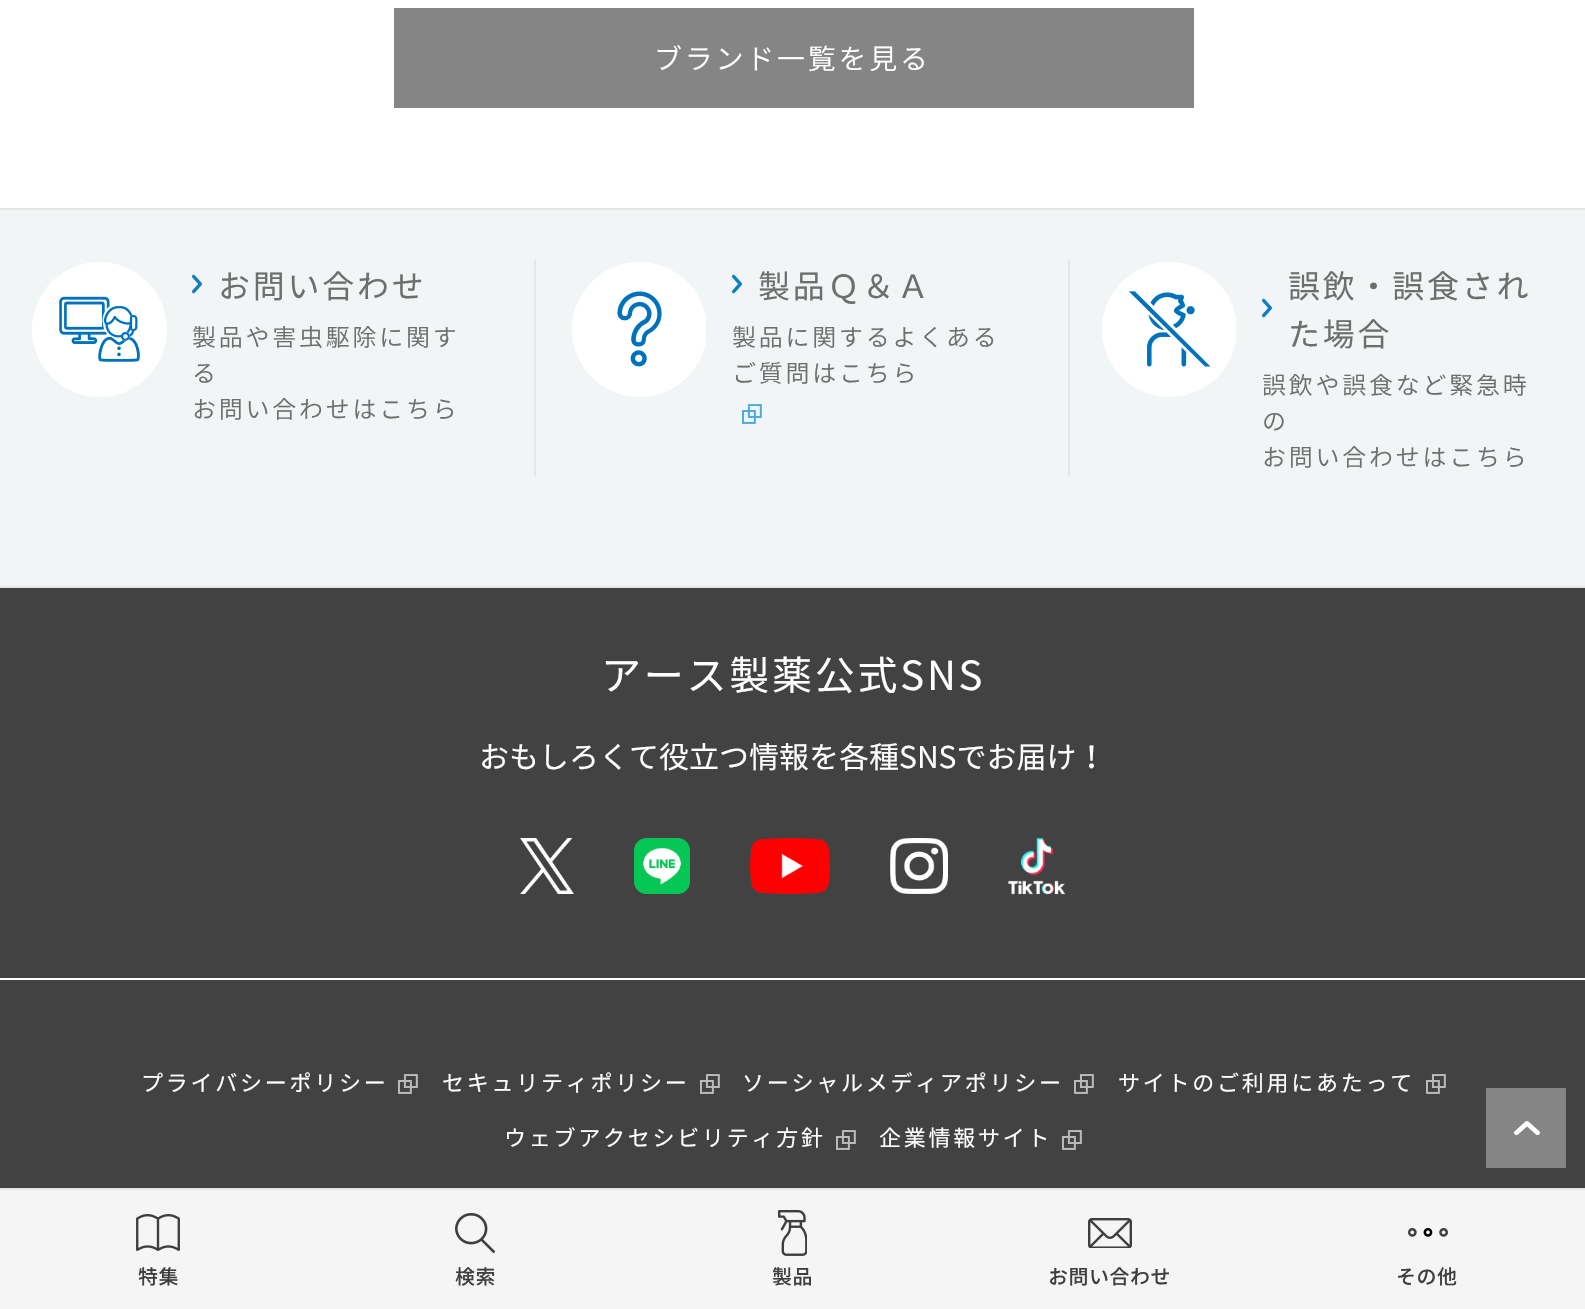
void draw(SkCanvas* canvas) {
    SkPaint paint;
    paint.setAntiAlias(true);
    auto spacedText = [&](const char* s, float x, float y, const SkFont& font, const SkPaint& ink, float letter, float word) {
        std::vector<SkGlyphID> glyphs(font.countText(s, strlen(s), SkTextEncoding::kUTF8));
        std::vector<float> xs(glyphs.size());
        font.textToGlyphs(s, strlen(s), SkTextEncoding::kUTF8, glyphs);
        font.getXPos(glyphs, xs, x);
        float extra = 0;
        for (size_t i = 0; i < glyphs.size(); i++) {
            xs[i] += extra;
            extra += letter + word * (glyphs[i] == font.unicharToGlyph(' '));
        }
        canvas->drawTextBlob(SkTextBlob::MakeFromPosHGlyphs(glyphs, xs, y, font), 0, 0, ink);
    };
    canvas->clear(0xFFFFFFFF);
    paint.setColor(0xFF858585);
    canvas->drawRect(SkRect::MakeXYWH(394, 8, 800, 100), paint);
    SkFont font1(fontMgr->matchFamilyStyle("Noto Sans JP", SkFontStyle(300, SkFontStyle::kNormal_Width, SkFontStyle::kUpright_Slant)), 28);
    font1.setSubpixel(true);
    paint.setColor(0xFFFFFFFF);
    spacedText("ブランド一覧を見る", 654, 69, font1, paint, 2.75f, 0);
    paint.setColor(0xFFF1F5F6);
    canvas->drawRect(SkRect::MakeXYWH(0, 210, 1585, 376), paint);
    paint.setColor(0xFFE5E5E5);
    canvas->drawRect(SkRect::MakeXYWH(0, 208, 1585, 2), paint);
    canvas->drawRect(SkRect::MakeXYWH(0, 586, 1585, 2), paint);
    canvas->drawImageRect(SkImages::DeferredFromEncodedData(SkData::MakeFromFileName("img1.png")), SkRect::MakeXYWH(32, 262, 135, 135), SkSamplingOptions());
    canvas->drawImageRect(SkImages::DeferredFromEncodedData(SkData::MakeFromFileName("img2.png")), SkRect::MakeXYWH(192, 274, 10, 20), SkSamplingOptions());
    SkFont font2(fontMgr->matchFamilyStyle("Noto Sans JP", SkFontStyle::Normal()), 32);
    font2.setSubpixel(true);
    paint.setColor(0xFF6E6E6E);
    spacedText("お問い合わせ", 218, 298, font2, paint, 2.75f, 0);
    SkFont font3(fontMgr->matchFamilyStyle("Noto Sans JP", SkFontStyle(300, SkFontStyle::kNormal_Width, SkFontStyle::kUpright_Slant)), 24);
    font3.setSubpixel(true);
    spacedText("製品や害虫駆除に関す", 192, 346, font3, paint, 2.75f, 0);
    spacedText("る", 192, 382, font3, paint, 2.75f, 0);
    spacedText("お問い合わせはこちら", 192, 418, font3, paint, 2.75f, 0);
    paint.setColor(0xFFE5E5E5);
    canvas->drawRect(SkRect::MakeXYWH(534, 260, 2, 216), paint);
    canvas->drawImageRect(SkImages::DeferredFromEncodedData(SkData::MakeFromFileName("img3.png")), SkRect::MakeXYWH(572, 262, 134, 135), SkSamplingOptions());
    canvas->drawImageRect(SkImages::DeferredFromEncodedData(SkData::MakeFromFileName("img2.png")), SkRect::MakeXYWH(732, 274, 10, 20), SkSamplingOptions());
    paint.setColor(0xFF6E6E6E);
    spacedText("製品Ｑ＆Ａ", 758, 298, font2, paint, 2.75f, 0);
    spacedText("製品に関するよくある", 732, 346, font3, paint, 2.75f, 0);
    spacedText("ご質問はこちら", 732, 382, font3, paint, 2.75f, 0);
    canvas->drawImageRect(SkImages::DeferredFromEncodedData(SkData::MakeFromFileName("img4.png")), SkRect::MakeXYWH(742, 404, 20, 20), SkSamplingOptions());
    paint.setColor(0xFFE5E5E5);
    canvas->drawRect(SkRect::MakeXYWH(1068, 260, 2, 216), paint);
    canvas->drawImageRect(SkImages::DeferredFromEncodedData(SkData::MakeFromFileName("img5.png")), SkRect::MakeXYWH(1102, 262, 134, 135), SkSamplingOptions());
    canvas->drawImageRect(SkImages::DeferredFromEncodedData(SkData::MakeFromFileName("img2.png")), SkRect::MakeXYWH(1262, 298, 10, 20), SkSamplingOptions());
    paint.setColor(0xFF6E6E6E);
    spacedText("誤飲・誤食され", 1288, 298, font2, paint, 2.75f, 0);
    spacedText("た場合", 1288, 346, font2, paint, 2.75f, 0);
    spacedText("誤飲や誤食など緊急時", 1262, 394, font3, paint, 2.75f, 0);
    spacedText("の", 1262, 430, font3, paint, 2.75f, 0);
    spacedText("お問い合わせはこちら", 1262, 466, font3, paint, 2.75f, 0);
    paint.setColor(0xFF424242);
    canvas->drawRect(SkRect::MakeXYWH(0, 588, 1585, 600), paint);
    paint.setColor(0xFFFFFFFF);
    canvas->drawRect(SkRect::MakeXYWH(0, 978, 1585, 2), paint);
    SkFont font4(fontMgr->matchFamilyStyle("Noto Sans JP", SkFontStyle::Normal()), 40);
    font4.setSubpixel(true);
    spacedText("アース製薬公式SNS", 601, 690, font4, paint, 2.75f, 0);
    SkFont font5(fontMgr->matchFamilyStyle("Noto Sans JP", SkFontStyle::Normal()), 30);
    font5.setSubpixel(true);
    canvas->drawString("おもしろくて役立つ情報を各種SNSでお届け！", 479, 768, font5, paint);
    canvas->drawImageRect(SkImages::DeferredFromEncodedData(SkData::MakeFromFileName("img6.png")), SkRect::MakeXYWH(520, 838, 54, 56), SkSamplingOptions());
    canvas->drawImageRect(SkImages::DeferredFromEncodedData(SkData::MakeFromFileName("img7.png")), SkRect::MakeXYWH(634, 838, 56, 56), SkSamplingOptions());
    canvas->drawImageRect(SkImages::DeferredFromEncodedData(SkData::MakeFromFileName("img8.png")), SkRect::MakeXYWH(750, 838, 80, 56), SkSamplingOptions());
    canvas->drawImageRect(SkImages::DeferredFromEncodedData(SkData::MakeFromFileName("img9.png")), SkRect::MakeXYWH(890, 838, 58, 56), SkSamplingOptions());
    canvas->drawImageRect(SkImages::DeferredFromEncodedData(SkData::MakeFromFileName("img10.png")), SkRect::MakeXYWH(1007, 838, 59, 57), SkSamplingOptions());
    SkFont font6(fontMgr->matchFamilyStyle("Noto Sans JP", SkFontStyle::Normal()), 22);
    font6.setSubpixel(true);
    spacedText("プライバシーポリシー", 141, 1091, font6, paint, 2.75f, 0);
    canvas->drawImageRect(SkImages::DeferredFromEncodedData(SkData::MakeFromFileName("img11.png")), SkRect::MakeXYWH(398, 1074, 20, 20), SkSamplingOptions());
    spacedText("セキュリティポリシー", 442, 1091, font6, paint, 2.75f, 0);
    canvas->drawImageRect(SkImages::DeferredFromEncodedData(SkData::MakeFromFileName("img11.png")), SkRect::MakeXYWH(700, 1074, 20, 20), SkSamplingOptions());
    spacedText("ソーシャルメディアポリシー", 742, 1091, font6, paint, 2.75f, 0);
    canvas->drawImageRect(SkImages::DeferredFromEncodedData(SkData::MakeFromFileName("img11.png")), SkRect::MakeXYWH(1074, 1074, 20, 20), SkSamplingOptions());
    spacedText("サイトのご利用にあたって", 1118, 1091, font6, paint, 2.75f, 0);
    canvas->drawImageRect(SkImages::DeferredFromEncodedData(SkData::MakeFromFileName("img11.png")), SkRect::MakeXYWH(1426, 1074, 20, 20), SkSamplingOptions());
    spacedText("ウェブアクセシビリティ方針", 504, 1146, font6, paint, 2.75f, 0);
    canvas->drawImageRect(SkImages::DeferredFromEncodedData(SkData::MakeFromFileName("img11.png")), SkRect::MakeXYWH(836, 1130, 20, 20), SkSamplingOptions());
    spacedText("企業情報サイト", 879, 1146, font6, paint, 2.75f, 0);
    canvas->drawImageRect(SkImages::DeferredFromEncodedData(SkData::MakeFromFileName("img11.png")), SkRect::MakeXYWH(1062, 1130, 20, 20), SkSamplingOptions());
    paint.setColor(0xFF858585);
    canvas->drawRect(SkRect::MakeXYWH(1486, 1088, 80, 80), paint);
    canvas->drawImageRect(SkImages::DeferredFromEncodedData(SkData::MakeFromFileName("img12.png")), SkRect::MakeXYWH(1514, 1121, 26, 14), SkSamplingOptions());
    paint.setColor(0xFFF5F5F5);
    canvas->drawRect(SkRect::MakeXYWH(0, 1190, 1585, 119), paint);
    paint.setColor(0xFFE5E5E5);
    canvas->drawRect(SkRect::MakeXYWH(0, 1188, 1585, 2), paint);
    canvas->drawImageRect(SkImages::DeferredFromEncodedData(SkData::MakeFromFileName("img13.png")), SkRect::MakeXYWH(136, 1214, 44, 37), SkSamplingOptions());
    SkFont font7(fontMgr->matchFamilyStyle("Noto Sans JP", SkFontStyle(500, SkFontStyle::kNormal_Width, SkFontStyle::kUpright_Slant)), 20);
    font7.setSubpixel(true);
    paint.setColor(0xFF3E3E3E);
    spacedText("特集", 138, 1284, font7, paint, 0.5f, 0);
    canvas->drawImageRect(SkImages::DeferredFromEncodedData(SkData::MakeFromFileName("img14.png")), SkRect::MakeXYWH(455, 1213, 40, 40), SkSamplingOptions());
    spacedText("検索", 455, 1284, font7, paint, 0.5f, 0);
    canvas->drawImageRect(SkImages::DeferredFromEncodedData(SkData::MakeFromFileName("img15.png")), SkRect::MakeXYWH(778, 1210, 29, 46), SkSamplingOptions());
    spacedText("製品", 772, 1284, font7, paint, 0.5f, 0);
    canvas->drawImageRect(SkImages::DeferredFromEncodedData(SkData::MakeFromFileName("img16.png")), SkRect::MakeXYWH(1088, 1218, 44, 30), SkSamplingOptions());
    spacedText("お問い合わせ", 1048, 1284, font7, paint, 0.5f, 0);
    canvas->drawImageRect(SkImages::DeferredFromEncodedData(SkData::MakeFromFileName("img17.png")), SkRect::MakeXYWH(1408, 1228, 40, 9), SkSamplingOptions());
    spacedText("その他", 1396, 1284, font7, paint, 0.5f, 0);
}
